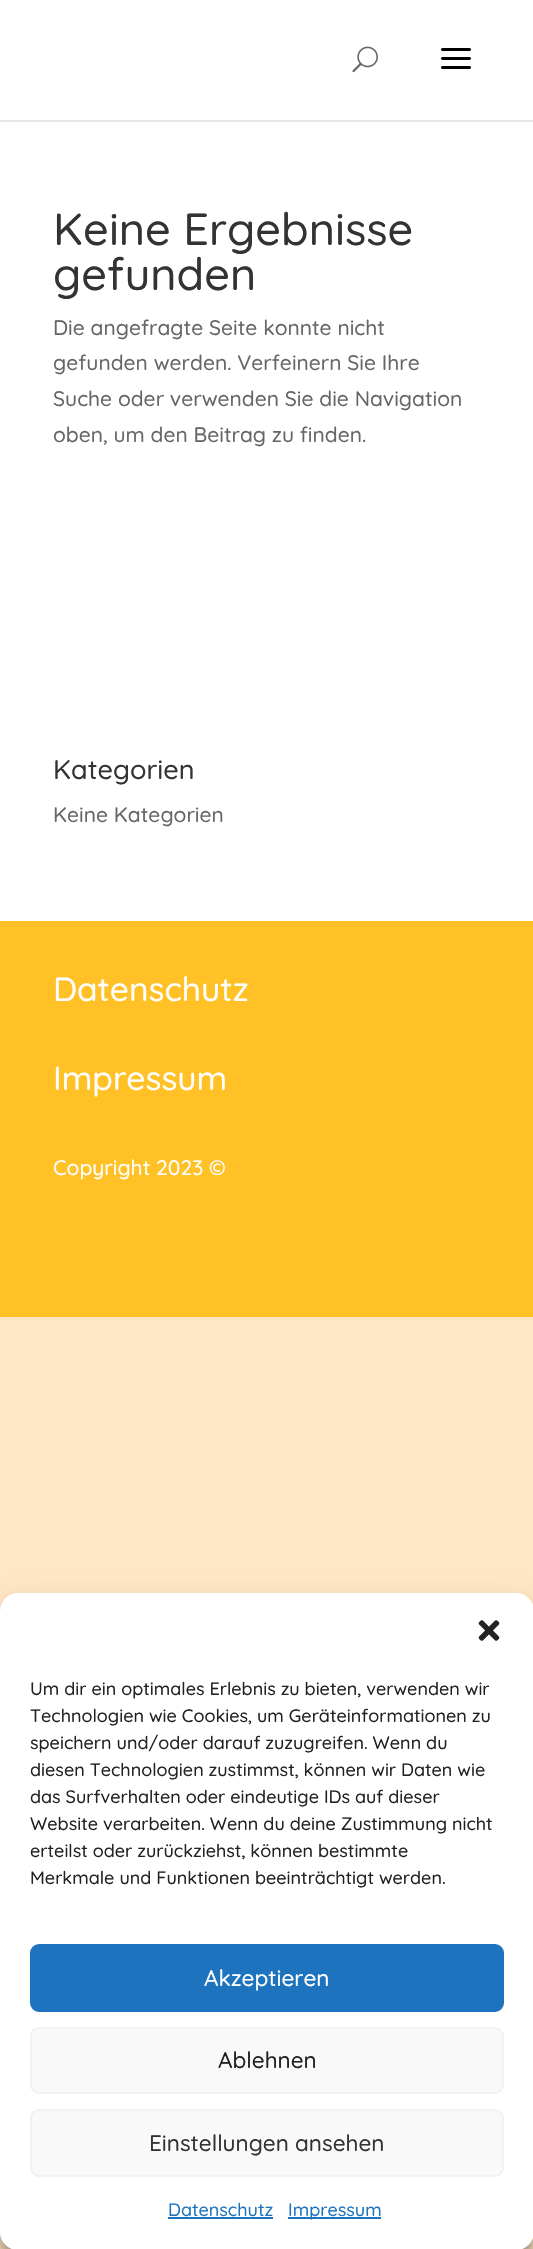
void draw(SkCanvas* canvas) {
    SkPaint paint;
    paint.setAntiAlias(true);
    canvas->clear(0xFFFFE6C4);
    paint.setColor(0xFFE6E6E6);
    canvas->drawRect(SkRect::MakeXYWH(0, 120, 533, 2), paint);
    paint.setColor(0xFFFFFFFF);
    canvas->drawRect(SkRect::MakeXYWH(0, 0, 533, 120), paint);
    canvas->drawImageRect(SkImages::DeferredFromEncodedData(SkData::MakeFromFileName("img1.png")), SkRect::MakeXYWH(352, 46, 26, 27), SkSamplingOptions());
    canvas->drawImageRect(SkImages::DeferredFromEncodedData(SkData::MakeFromFileName("img2.png")), SkRect::MakeXYWH(441, 48, 30, 21), SkSamplingOptions());
    canvas->drawRect(SkRect::MakeXYWH(0, 122, 533, 799), paint);
    SkFont font1(fontMgr->matchFamilyStyle("Quicksand", SkFontStyle(500, SkFontStyle::kNormal_Width, SkFontStyle::kUpright_Slant)), 45);
    font1.setSubpixel(true);
    paint.setColor(0xFF333333);
    canvas->drawString("Keine Ergebnisse", 53, 245, font1, paint);
    canvas->drawString("gefunden", 53, 290, font1, paint);
    SkFont font2(fontMgr->matchFamilyStyle("Quicksand", SkFontStyle(500, SkFontStyle::kNormal_Width, SkFontStyle::kUpright_Slant)), 21);
    font2.setSubpixel(true);
    paint.setColor(0xFF666666);
    canvas->drawString("Die angefragte Seite konnte nicht", 53, 335, font2, paint);
    canvas->drawString("gefunden werden. Verfeinern Sie Ihre", 53, 370, font2, paint);
    canvas->drawString("Suche oder verwenden Sie die Navigation", 53, 406, font2, paint);
    canvas->drawString("oben, um den Beitrag zu finden.", 53, 442, font2, paint);
    SkFont font3(fontMgr->matchFamilyStyle("Quicksand", SkFontStyle(500, SkFontStyle::kNormal_Width, SkFontStyle::kUpright_Slant)), 27);
    font3.setSubpixel(true);
    paint.setColor(0xFF333333);
    canvas->drawString("Kategorien", 53, 779, font3, paint);
    paint.setColor(0xFF666666);
    canvas->drawString("Keine Kategorien", 53, 822, font2, paint);
    paint.setColor(0xFFFFC125);
    canvas->drawRect(SkRect::MakeXYWH(0, 921, 533, 396), paint);
    SkFont font4(fontMgr->matchFamilyStyle("Quicksand", SkFontStyle(500, SkFontStyle::kNormal_Width, SkFontStyle::kUpright_Slant)), 33.5f);
    font4.setSubpixel(true);
    paint.setColor(0xFFFFFFFF);
    canvas->drawString("Datenschutz", 53, 1001, font4, paint);
    canvas->drawString("Impressum", 53, 1090, font4, paint);
    canvas->drawString("Copyright 2023 ©", 53, 1175, font2, paint);
    paint.setColor(0x3B000000);
    paint.setMaskFilter(SkMaskFilter::MakeBlur(kNormal_SkBlurStyle, 4.5f));
    canvas->drawRoundRect(SkRect::MakeXYWH(0, 1602, 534, 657), 18, 18, paint);
    paint.setMaskFilter(nullptr);
    paint.setColor(0x30000000);
    paint.setMaskFilter(SkMaskFilter::MakeBlur(kNormal_SkBlurStyle, 15));
    canvas->drawRoundRect(SkRect::MakeXYWH(0, 1608, 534, 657), 18, 18, paint);
    paint.setMaskFilter(nullptr);
    paint.setColor(0xFFFFFFFF);
    canvas->drawRoundRect(SkRect::MakeXYWH(0, 1593, 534, 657), 18, 18, paint);
    canvas->drawImageRect(SkImages::DeferredFromEncodedData(SkData::MakeFromFileName("img3.png")), SkRect::MakeXYWH(478, 1620, 22, 21), SkSamplingOptions());
    SkFont font5(fontMgr->matchFamilyStyle("Quicksand", SkFontStyle(500, SkFontStyle::kNormal_Width, SkFontStyle::kUpright_Slant)), 18);
    font5.setSubpixel(true);
    paint.setColor(0xFF222222);
    canvas->drawString("Um dir ein optimales Erlebnis zu bieten, verwenden wir", 30, 1695, font5, paint);
    canvas->drawString("Technologien wie Cookies, um Geräteinformationen zu", 30, 1722, font5, paint);
    canvas->drawString("speichern und/oder darauf zuzugreifen. Wenn du", 30, 1749, font5, paint);
    canvas->drawString("diesen Technologien zustimmst, können wir Daten wie", 30, 1776, font5, paint);
    canvas->drawString("das Surfverhalten oder eindeutige IDs auf dieser", 30, 1803, font5, paint);
    canvas->drawString("Website verarbeiten. Wenn du deine Zustimmung nicht", 30, 1830, font5, paint);
    canvas->drawString("erteilst oder zurückziehst, können bestimmte", 30, 1857, font5, paint);
    canvas->drawString("Merkmale und Funktionen beeinträchtigt werden.", 30, 1884, font5, paint);
    paint.setColor(0xFF1E73BE);
    canvas->drawRoundRect(SkRect::MakeXYWH(31, 1945, 472, 66), 8, 8, paint);
    paint.setStyle(SkPaint::kStroke_Style);
    paint.setStrokeWidth(2);
    canvas->drawRoundRect(SkRect::MakeXYWH(31, 1945, 472, 66), 8, 8, paint);
    SkFont font6(fontMgr->matchFamilyStyle("Quicksand", SkFontStyle(500, SkFontStyle::kNormal_Width, SkFontStyle::kUpright_Slant)), 22.5f);
    font6.setSubpixel(true);
    paint.setStyle(SkPaint::kFill_Style);
    paint.setColor(0xFFFFFFFF);
    canvas->drawString("Akzeptieren", 204, 1986, font6, paint);
    paint.setColor(0xFFF9F9F9);
    canvas->drawRoundRect(SkRect::MakeXYWH(31, 2028, 472, 65), 8, 8, paint);
    paint.setStyle(SkPaint::kStroke_Style);
    paint.setColor(0xFFF2F2F2);
    canvas->drawRoundRect(SkRect::MakeXYWH(31, 2028, 472, 65), 8, 8, paint);
    paint.setStyle(SkPaint::kFill_Style);
    paint.setColor(0xFF222222);
    canvas->drawString("Ablehnen", 218, 2068, font6, paint);
    paint.setColor(0xFFF9F9F9);
    canvas->drawRoundRect(SkRect::MakeXYWH(31, 2110, 472, 66), 8, 8, paint);
    paint.setStyle(SkPaint::kStroke_Style);
    paint.setColor(0xFFF2F2F2);
    canvas->drawRoundRect(SkRect::MakeXYWH(31, 2110, 472, 66), 8, 8, paint);
    paint.setStyle(SkPaint::kFill_Style);
    paint.setColor(0xFF333333);
    canvas->drawString("Einstellungen ansehen", 149, 2151, font6, paint);
    paint.setColor(0xFF1E73BE);
    canvas->drawString("Datenschutz", 168, 2216, font5, paint);
    canvas->drawRect(SkRect::MakeXYWH(168, 2217, 105, 2), paint);
    canvas->drawRect(SkRect::MakeXYWH(288, 2217, 93, 2), paint);
    canvas->drawString("Impressum", 288, 2216, font5, paint);
}
